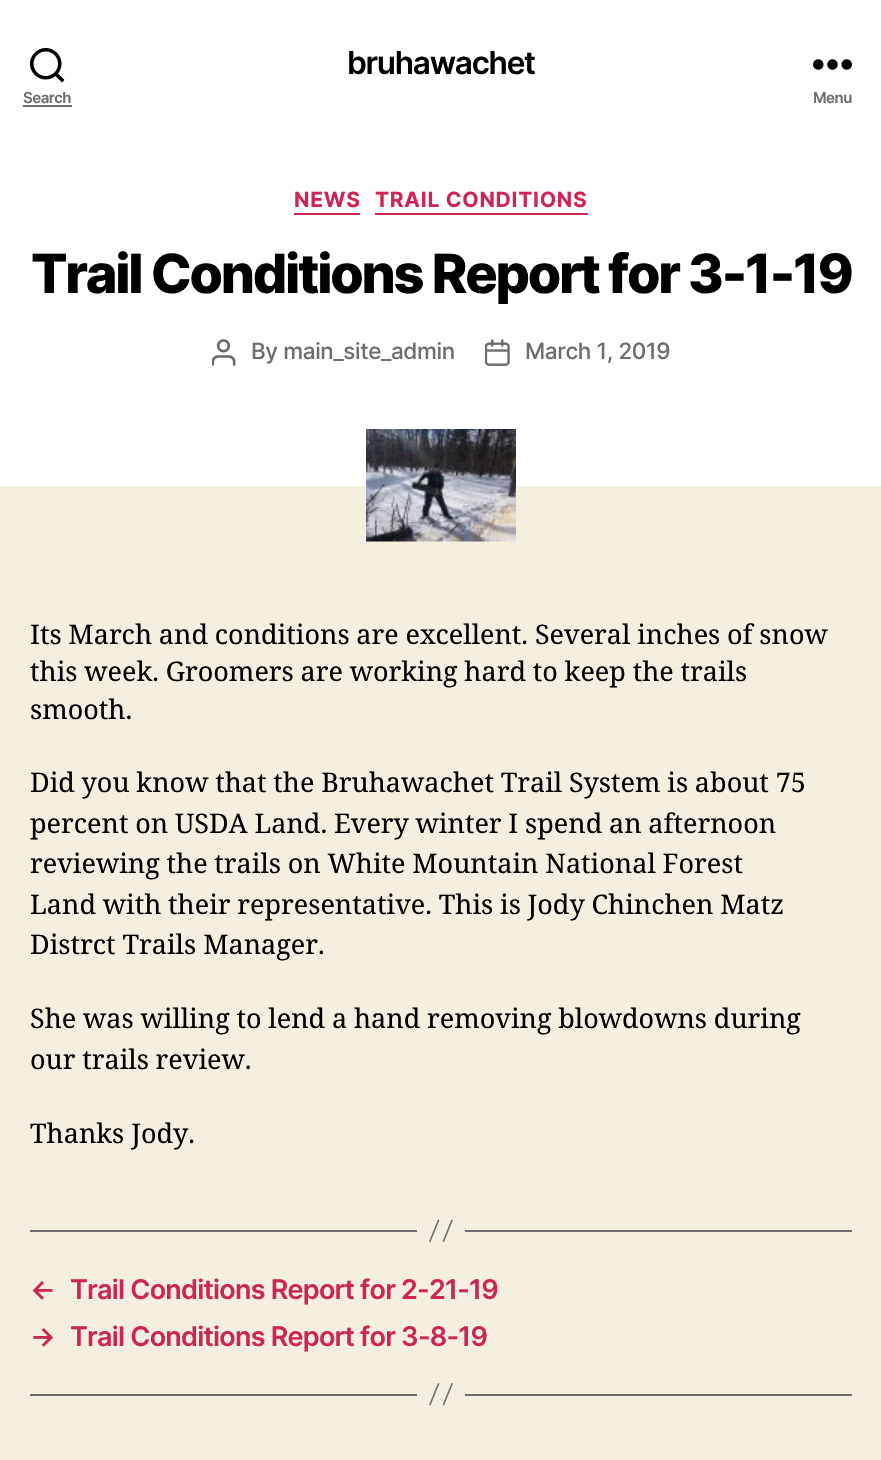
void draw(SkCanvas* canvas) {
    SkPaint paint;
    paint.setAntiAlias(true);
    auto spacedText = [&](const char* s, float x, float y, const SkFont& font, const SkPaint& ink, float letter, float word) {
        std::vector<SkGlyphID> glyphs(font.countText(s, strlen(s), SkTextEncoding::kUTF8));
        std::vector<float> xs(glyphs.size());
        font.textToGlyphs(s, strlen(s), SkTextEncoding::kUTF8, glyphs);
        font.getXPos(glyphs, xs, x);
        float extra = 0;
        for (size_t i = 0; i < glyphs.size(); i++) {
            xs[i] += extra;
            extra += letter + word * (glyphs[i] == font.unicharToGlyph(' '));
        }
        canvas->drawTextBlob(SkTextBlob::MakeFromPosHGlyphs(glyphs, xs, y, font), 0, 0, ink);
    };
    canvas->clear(0xFFF5EFE0);
    paint.setColor(0xFFFFFFFF);
    canvas->drawRect(SkRect::MakeXYWH(0, 0, 881, 486), paint);
    SkFont font1(fontMgr->matchFamilyStyle("Inter", SkFontStyle(600, SkFontStyle::kNormal_Width, SkFontStyle::kUpright_Slant)), 31.5f);
    font1.setSubpixel(true);
    paint.setColor(0xFF000000);
    spacedText("bruhawachet", 347, 74, font1, paint, -1.25f, 0);
    canvas->drawImageRect(SkImages::DeferredFromEncodedData(SkData::MakeFromFileName("img1.png")), SkRect::MakeXYWH(30, 48, 35, 35), SkSamplingOptions());
    SkFont font2(fontMgr->matchFamilyStyle("Inter", SkFontStyle(600, SkFontStyle::kNormal_Width, SkFontStyle::kUpright_Slant)), 15);
    font2.setSubpixel(true);
    paint.setColor(0xFF6D6D6D);
    spacedText("Search", 23, 103, font2, paint, -0.5f, 0);
    canvas->drawRect(SkRect::MakeXYWH(23, 105, 49, 2), paint);
    canvas->drawImageRect(SkImages::DeferredFromEncodedData(SkData::MakeFromFileName("img2.png")), SkRect::MakeXYWH(813, 59, 39, 11), SkSamplingOptions());
    spacedText("Menu", 813, 103, font2, paint, -0.5f, 0);
    paint.setColor(0xFFCD2653);
    canvas->drawRect(SkRect::MakeXYWH(294, 213, 66, 2), paint);
    SkFont font3(fontMgr->matchFamilyStyle("Inter", SkFontStyle::Bold()), 21);
    font3.setSubpixel(true);
    spacedText("NEWS", 294, 207, font3, paint, 0.75f, 0);
    canvas->drawRect(SkRect::MakeXYWH(375, 213, 213, 2), paint);
    spacedText("TRAIL CONDITIONS", 375, 207, font3, paint, 0.75f, 0);
    SkFont font4(fontMgr->matchFamilyStyle("Inter", SkFontStyle(800, SkFontStyle::kNormal_Width, SkFontStyle::kUpright_Slant)), 54);
    font4.setSubpixel(true);
    paint.setColor(0xFF000000);
    spacedText("Trail Conditions Report for 3-1-19", 31, 293, font4, paint, -2.25f, 0);
    canvas->drawImageRect(SkImages::DeferredFromEncodedData(SkData::MakeFromFileName("img3.png")), SkRect::MakeXYWH(212, 339, 24, 27), SkSamplingOptions());
    SkFont font5(fontMgr->matchFamilyStyle("Inter", SkFontStyle(500, SkFontStyle::kNormal_Width, SkFontStyle::kUpright_Slant)), 22.5f);
    font5.setSubpixel(true);
    paint.setColor(0xFF6D6D6D);
    spacedText("By main_site_admin", 251, 359, font5, paint, -0.4f, 0);
    canvas->drawImageRect(SkImages::DeferredFromEncodedData(SkData::MakeFromFileName("img4.png")), SkRect::MakeXYWH(485, 339, 25, 27), SkSamplingOptions());
    spacedText("March 1, 2019", 525, 359, font5, paint, -0.4f, 0);
    canvas->drawImageRect(SkImages::DeferredFromEncodedData(SkData::MakeFromFileName("img5.png")), SkRect::MakeXYWH(366, 429, 150, 113), SkSamplingOptions());
    SkFont font6(fontMgr->matchFamilyStyle("Noto Serif", SkFontStyle::Normal()), 27);
    font6.setSubpixel(true);
    paint.setColor(0xFF000000);
    spacedText("Its March and conditions are excellent. Several inches of snow", 30, 644, font6, paint, 0, -0.25f);
    spacedText("this week. Groomers are working hard to keep the trails", 30, 681, font6, paint, 0, -0.25f);
    canvas->drawString("smooth.", 30, 719, font6, paint);
    spacedText("Did you know that the Bruhawachet Trail System is about 75", 30, 792, font6, paint, 0, -0.25f);
    spacedText("percent on USDA Land. Every winter I spend an afternoon", 30, 833, font6, paint, 0, -0.25f);
    spacedText("reviewing the trails on White Mountain National Forest", 30, 873, font6, paint, 0, -0.25f);
    spacedText("Land with their representative. This is Jody Chinchen Matz", 30, 914, font6, paint, 0, -0.25f);
    canvas->drawString("Distrct Trails Manager.", 30, 954, font6, paint);
    spacedText("She was willing to lend a hand removing blowdowns during", 30, 1028, font6, paint, 0, -0.25f);
    spacedText("our trails review.", 30, 1069, font6, paint, 0, -0.25f);
    canvas->drawString("Thanks Jody.", 30, 1143, font6, paint);
    paint.setColor(0xFF6D6D6D);
    canvas->drawRect(SkRect::MakeXYWH(465, 1230, 387, 2), paint);
    canvas->drawRect(SkRect::MakeXYWH(30, 1230, 387, 2), paint);
    canvas->drawPath(SkPathBuilder().moveTo(438, 1219.5f).lineTo(439.5f, 1220).lineTo(430.5f, 1242).lineTo(429, 1241.5f).close().moveTo(451.5f, 1219.5f).lineTo(453, 1220).lineTo(444, 1242).lineTo(442.5f, 1241.5f).close().detach(), paint);
    SkFont font7(fontMgr->matchFamilyStyle("Inter", SkFontStyle(600, SkFontStyle::kNormal_Width, SkFontStyle::kUpright_Slant)), 27);
    font7.setSubpixel(true);
    paint.setColor(0xFFCD2653);
    spacedText("←", 30, 1299, font7, paint, -0.75f, 0);
    spacedText("Trail Conditions Report for 2-21-19", 70, 1299, font7, paint, -0.75f, 0);
    spacedText("→", 30, 1346, font7, paint, -0.75f, 0);
    spacedText("Trail Conditions Report for 3-8-19", 70, 1346, font7, paint, -0.75f, 0);
    paint.setColor(0xFF6D6D6D);
    canvas->drawRect(SkRect::MakeXYWH(465, 1394, 387, 2), paint);
    canvas->drawRect(SkRect::MakeXYWH(30, 1394, 387, 2), paint);
    canvas->drawPath(SkPathBuilder().moveTo(438, 1383).lineTo(439.5f, 1383.5f).lineTo(430.5f, 1405.5f).lineTo(429, 1405).close().moveTo(451.5f, 1383).lineTo(453, 1383.5f).lineTo(444, 1405.5f).lineTo(442.5f, 1405).close().detach(), paint);
}
